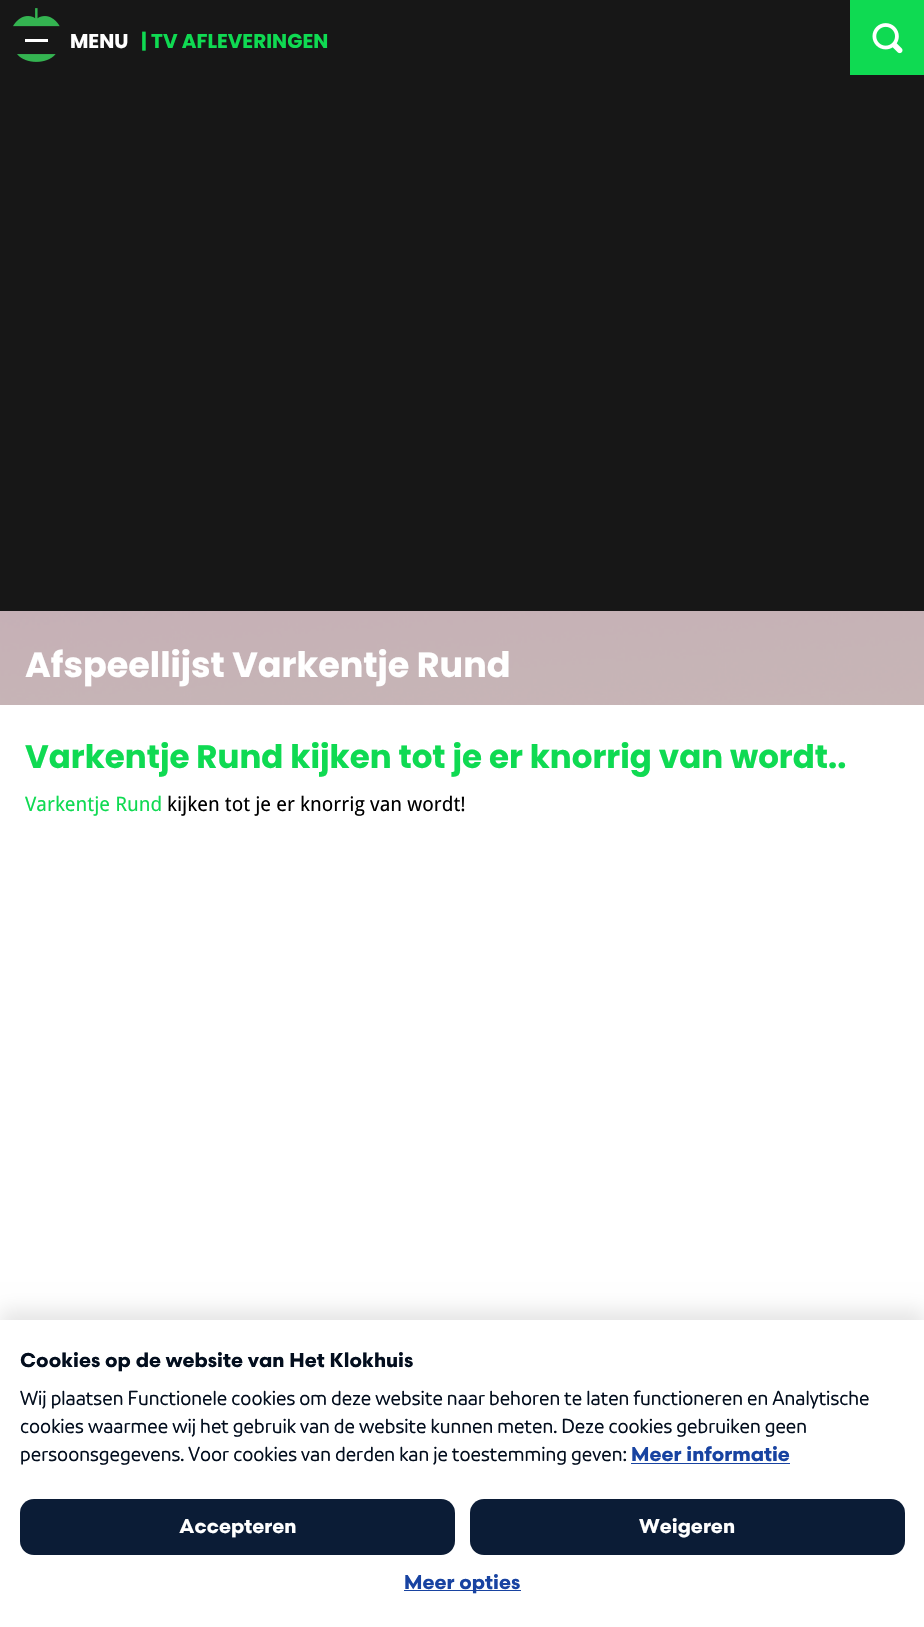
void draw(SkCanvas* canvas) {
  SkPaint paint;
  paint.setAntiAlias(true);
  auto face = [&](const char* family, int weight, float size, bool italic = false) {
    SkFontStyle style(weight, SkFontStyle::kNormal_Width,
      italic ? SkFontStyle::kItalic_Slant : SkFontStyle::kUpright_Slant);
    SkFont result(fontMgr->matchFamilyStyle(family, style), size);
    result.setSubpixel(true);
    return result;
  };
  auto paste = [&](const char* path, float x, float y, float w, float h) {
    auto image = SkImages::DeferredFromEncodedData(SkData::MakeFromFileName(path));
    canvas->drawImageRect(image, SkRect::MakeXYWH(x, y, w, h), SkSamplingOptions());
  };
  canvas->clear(0xffffffff);
  paste("img/1.png", 0, 611, 924, 94);
  paint.setColor(0xff171717);
  canvas->drawRect(SkRect::MakeXYWH(0, 0, 850, 69), paint);
  paste("img/2.png", 13, 8, 47, 54);
  {
    const struct { float x, y, w, h; SkColor color; } items[] = {
      {25, 39, 23, 3, 0xffffffff},
      {0, 69, 924, 542, 0xff171717},
      {850, 0, 74, 75, 0xff0fda52},
    };
    for (auto [x, y, w, h, color] : items) {
      paint.setColor(color);
      canvas->drawRect(SkRect::MakeXYWH(x, y, w, h), paint);
    }
  }
  paste("img/3.png", 872, 23, 31, 31);
  paint.setColor(0x1a000000);
  paint.setMaskFilter(SkMaskFilter::MakeBlur(kNormal_SkBlurStyle, 9.5f));
  canvas->drawRect(SkRect::MakeXYWH(0, 1310, 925, 308), paint);
  paint.setMaskFilter(nullptr);
  paint.setColor(0xffffffff);
  canvas->drawRect(SkRect::MakeXYWH(0, 1320, 924, 307), paint);
  paint.setColor(0xff1843a1);
  canvas->drawRect(SkRect::MakeXYWH(631, 1463, 159, 1), paint);
  paint.setColor(0xff0b1c36);
  canvas->drawRoundRect(SkRect::MakeXYWH(20, 1499, 435, 56), 14, 14, paint);
  canvas->drawRoundRect(SkRect::MakeXYWH(470, 1499, 435, 56), 14, 14, paint);
  paint.setColor(0xff1843a1);
  canvas->drawRect(SkRect::MakeXYWH(404, 1590, 117, 1), paint);
  auto f0 = face("Poppins", 700, 20);
  paint.setColor(0xffffffff);
  canvas->drawString("MENU", 70, 48, f0, paint);
  paint.setColor(0xff0fda52);
  canvas->drawString("| TV AFLEVERINGEN", 141, 48, f0, paint);
  auto f1 = face("Poppins", 700, 35);
  paint.setColor(0xffffffff);
  canvas->drawString("Afspeellijst Varkentje Rund", 25, 677, f1, paint);
  auto f2 = face("Poppins", 700, 32.5f);
  paint.setColor(0xff0fda52);
  canvas->drawString("Varkentje Rund kijken tot je er knorrig van wordt..", 25, 768, f2, paint);
  auto f3 = face("Droid Sans", 400, 20);
  canvas->drawString("Varkentje Rund", 25, 811, f3, paint);
  paint.setColor(0xff000000);
  canvas->drawString("kijken tot je er knorrig van wordt!", 167, 811, f3, paint);
  auto f4 = face("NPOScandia", 700, 20);
  paint.setColor(0xff030e1e);
  canvas->drawString("Cookies op de website van Het Klokhuis", 20, 1367, f4, paint);
  auto f5 = face("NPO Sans", 400, 20);
  {
    const struct { const char* s; float x, y; } items[] = {
      {"Wij plaatsen Functionele cookies om deze website naar behoren te laten functioneren en Analytische", 20, 1405},
      {"cookies waarmee wij het gebruik van de website kunnen meten. Deze cookies gebruiken geen", 20, 1433},
      {"persoonsgegevens. Voor cookies van derden kan je toestemming geven:", 20, 1461},
    };
    for (auto [s, x, y] : items) {
      canvas->drawString(s, x, y, f5, paint);
    }
  }
  paint.setColor(0xff1843a1);
  canvas->drawString("Meer informatie", 631, 1461, f4, paint);
  paint.setColor(0xffffffff);
  canvas->drawString("Accepteren", 179, 1533, f4, paint);
  canvas->drawString("Weigeren", 639, 1533, f4, paint);
  paint.setColor(0xff1843a1);
  canvas->drawString("Meer opties", 404, 1589, f4, paint);
}
